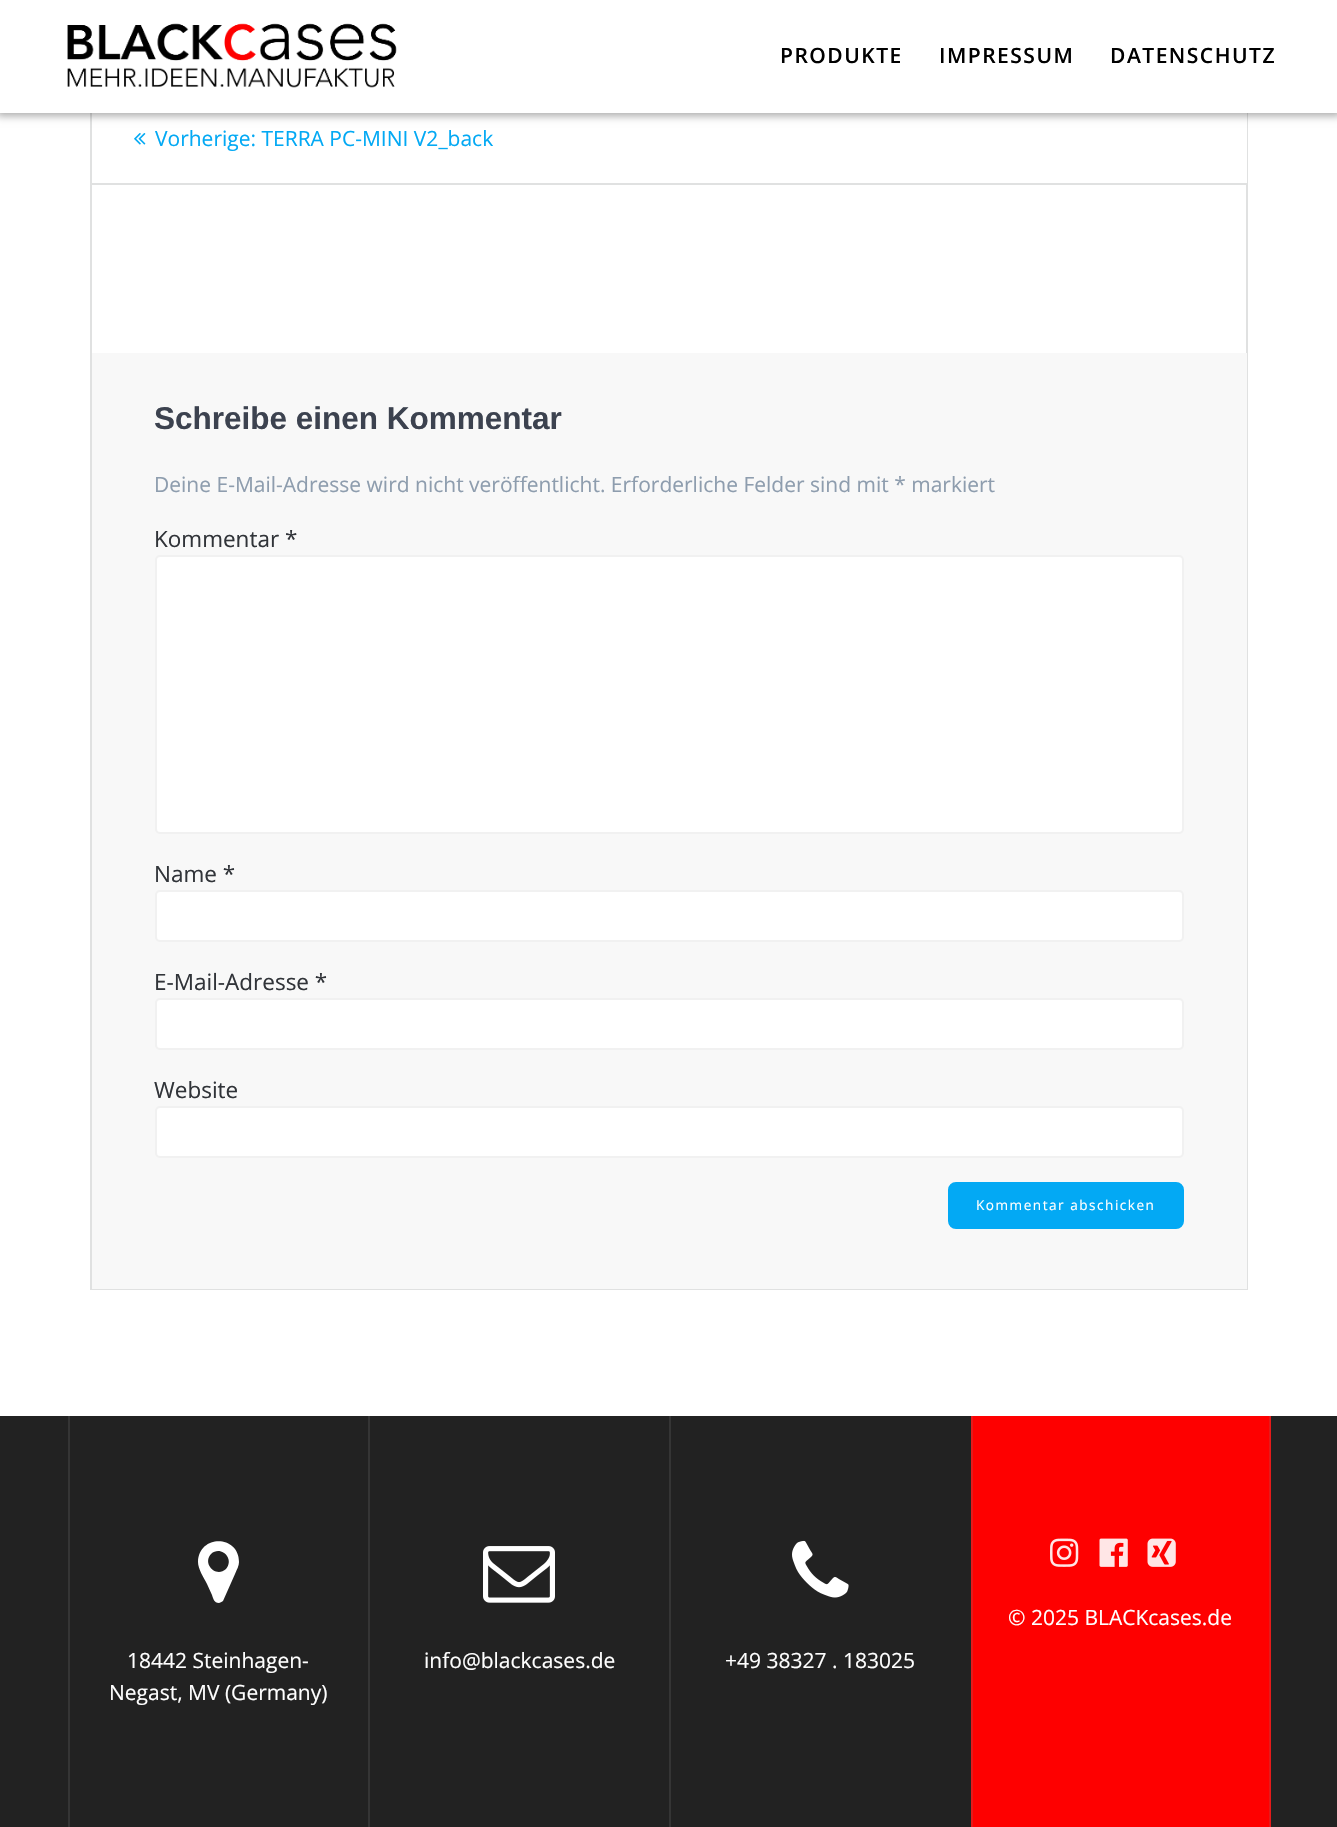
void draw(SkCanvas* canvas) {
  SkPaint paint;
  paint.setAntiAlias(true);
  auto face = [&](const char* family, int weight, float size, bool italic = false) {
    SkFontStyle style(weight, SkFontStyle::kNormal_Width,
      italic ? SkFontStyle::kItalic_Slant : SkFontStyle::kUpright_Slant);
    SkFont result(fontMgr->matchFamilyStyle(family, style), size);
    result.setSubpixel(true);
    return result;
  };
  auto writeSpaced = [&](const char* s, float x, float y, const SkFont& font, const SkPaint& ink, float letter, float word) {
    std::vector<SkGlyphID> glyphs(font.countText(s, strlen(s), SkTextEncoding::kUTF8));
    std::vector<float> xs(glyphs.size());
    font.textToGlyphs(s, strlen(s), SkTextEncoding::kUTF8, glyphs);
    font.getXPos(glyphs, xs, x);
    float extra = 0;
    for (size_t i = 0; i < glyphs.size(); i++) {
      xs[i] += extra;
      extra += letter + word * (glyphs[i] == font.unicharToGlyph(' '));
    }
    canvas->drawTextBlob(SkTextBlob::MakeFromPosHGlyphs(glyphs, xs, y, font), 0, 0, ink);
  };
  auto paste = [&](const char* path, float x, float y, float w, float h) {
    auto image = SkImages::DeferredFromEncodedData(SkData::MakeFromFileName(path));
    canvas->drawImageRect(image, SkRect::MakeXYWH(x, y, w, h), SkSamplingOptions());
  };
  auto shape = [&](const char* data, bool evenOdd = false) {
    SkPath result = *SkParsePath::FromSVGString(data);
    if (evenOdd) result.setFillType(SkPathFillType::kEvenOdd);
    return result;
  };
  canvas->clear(0xffffffff);
  paint.setStroke(true);
  paint.setStrokeWidth(2);
  paint.setColor(0xffe0e1e1);
  canvas->drawRect(SkRect::MakeXYWH(91, -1, 1156, 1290), paint);
  paint.setStroke(false);
  paint.setColor(0xffffffff);
  canvas->drawRect(SkRect::MakeXYWH(1246, 113, 1, 70), paint);
  paint.setColor(0x54000000);
  paint.setMaskFilter(SkMaskFilter::MakeBlur(kNormal_SkBlurStyle, 4));
  canvas->drawRect(SkRect::MakeXYWH(-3, -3, 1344, 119), paint);
  paint.setMaskFilter(nullptr);
  paint.setColor(0xffffffff);
  canvas->drawRect(SkRect::MakeXYWH(0, 0, 1337, 113), paint);
  paste("img/1.png", 67, 23, 330, 65);
  paint.setColor(0xffe0e1e1);
  canvas->drawRect(SkRect::MakeXYWH(92, 183, 1155, 2), paint);
  paste("img/2.png", 134, 133, 12, 12);
  paint.setColor(0xfff8f8f8);
  canvas->drawRect(SkRect::MakeXYWH(92, 353, 1155, 936), paint);
  paint.setColor(0xffffffff);
  canvas->drawRoundRect(SkRect::MakeXYWH(156, 556, 1027, 277), 4, 4, paint);
  paint.setStroke(true);
  paint.setColor(0xfff1f1f1);
  canvas->drawRoundRect(SkRect::MakeXYWH(156, 556, 1027, 277), 4, 4, paint);
  paint.setStroke(false);
  paint.setColor(0xffffffff);
  canvas->drawRoundRect(SkRect::MakeXYWH(156, 891, 1027, 50), 4, 4, paint);
  paint.setStroke(true);
  paint.setColor(0xfff1f1f1);
  canvas->drawRoundRect(SkRect::MakeXYWH(156, 891, 1027, 50), 4, 4, paint);
  paint.setStroke(false);
  paint.setColor(0xffffffff);
  canvas->drawRoundRect(SkRect::MakeXYWH(156, 999, 1027, 50), 4, 4, paint);
  paint.setStroke(true);
  paint.setColor(0xfff1f1f1);
  canvas->drawRoundRect(SkRect::MakeXYWH(156, 999, 1027, 50), 4, 4, paint);
  paint.setStroke(false);
  paint.setColor(0xffffffff);
  canvas->drawRoundRect(SkRect::MakeXYWH(156, 1107, 1027, 50), 4, 4, paint);
  paint.setStroke(true);
  paint.setColor(0xfff1f1f1);
  canvas->drawRoundRect(SkRect::MakeXYWH(156, 1107, 1027, 50), 4, 4, paint);
  paint.setStroke(false);
  paint.setColor(0xff03a9f4);
  canvas->drawRoundRect(SkRect::MakeXYWH(949.5f, 1183.5f, 233, 44), 6.5f, 6.5f, paint);
  paint.setStroke(true);
  paint.setStrokeWidth(3);
  canvas->drawRoundRect(SkRect::MakeXYWH(949.5f, 1183.5f, 233, 44), 6.5f, 6.5f, paint);
  paint.setStroke(false);
  {
    const struct { float x, y, w, h; SkColor color; } items[] = {
      {0, 1416, 1337, 411, 0xff222222},
      {973, 1416, 296, 411, 0xfffe0000},
      {1269, 1416, 2, 411, 0xffe51a1a},
      {971, 1416, 2, 411, 0xffe51a1a},
    };
    for (auto [x, y, w, h, color] : items) {
      paint.setColor(color);
      canvas->drawRect(SkRect::MakeXYWH(x, y, w, h), paint);
    }
  }
  paste("img/3.png", 1050, 1538, 29, 29);
  paste("img/4.png", 1099, 1538, 29, 29);
  paste("img/5.png", 1147, 1538, 29, 29);
  paint.setColor(0xff353535);
  canvas->drawRect(SkRect::MakeXYWH(68, 1416, 2, 411), paint);
  paint.setColor(0xffffffff);
  canvas->drawPath(shape("M226 1569C235 1559 221 1545 211 1554C202 1564 216 1578 226 1569ZM239 1562C239 1566 237 1569 235 1574L223 1601C222 1602 221 1602 219 1603C214 1603 213 1598 212 1595L207 1584C204 1578 198 1569 198 1562C199 1534 239 1535 239 1562Z"), paint);
  paint.setColor(0xff353535);
  canvas->drawRect(SkRect::MakeXYWH(368, 1416, 2, 411), paint);
  paste("img/6.png", 483, 1546, 72, 57);
  canvas->drawRect(SkRect::MakeXYWH(669, 1416, 2, 411), paint);
  paste("img/7.png", 792, 1540, 57, 58);
  auto f0 = face("Open Sans", 600, 21);
  paint.setColor(0xff000000);
  {
    const struct { const char* s; float x, y; } items[] = {
      {"PRODUKTE", 780, 63},
      {"IMPRESSUM", 939, 63},
      {"DATENSCHUTZ", 1110, 63},
    };
    for (auto [s, x, y] : items) {
      writeSpaced(s, x, y, f0, paint, 1.5f, 0);
    }
  }
  auto f1 = face("Open Sans", 400, 21);
  paint.setColor(0xff03a9f4);
  canvas->drawString("Vorherige: TERRA PC-MINI V2_back", 155, 146, f1, paint);
  auto f2 = face("Liberation Sans", 700, 31.5f);
  paint.setColor(0xff3c424f);
  canvas->drawString("Schreibe einen Kommentar", 154, 429, f2, paint);
  paint.setColor(0xff8e9dae);
  canvas->drawString("Deine E-Mail-Adresse wird nicht veröffentlicht. Erforderliche Felder sind mit * markiert", 154, 492, f1, paint);
  auto f3 = face("Open Sans", 400, 22.5f);
  paint.setColor(0xff313439);
  {
    const struct { const char* s; float x, y; } items[] = {
      {"Kommentar *", 154, 547},
      {"Name *", 154, 882},
      {"E-Mail-Adresse *", 154, 990},
      {"Website", 154, 1098},
    };
    for (auto [s, x, y] : items) {
      canvas->drawString(s, x, y, f3, paint);
    }
  }
  auto f4 = face("Open Sans", 400, 13.6f);
  paint.setColor(0xffffffff);
  writeSpaced("Kommentar abschicken", 976, 1210, f4, paint, 1.5f, 0);
  {
    const struct { const char* s; float x, y; } items[] = {
      {"© 2025 BLACKcases.de", 1008, 1625},
      {"18442 Steinhagen-", 127, 1668},
      {"Negast, MV (Germany)", 109, 1700},
      {"info@blackcases.de", 424, 1668},
      {"+49 38327 . 183025", 725, 1668},
    };
    for (auto [s, x, y] : items) {
      canvas->drawString(s, x, y, f1, paint);
    }
  }
}
